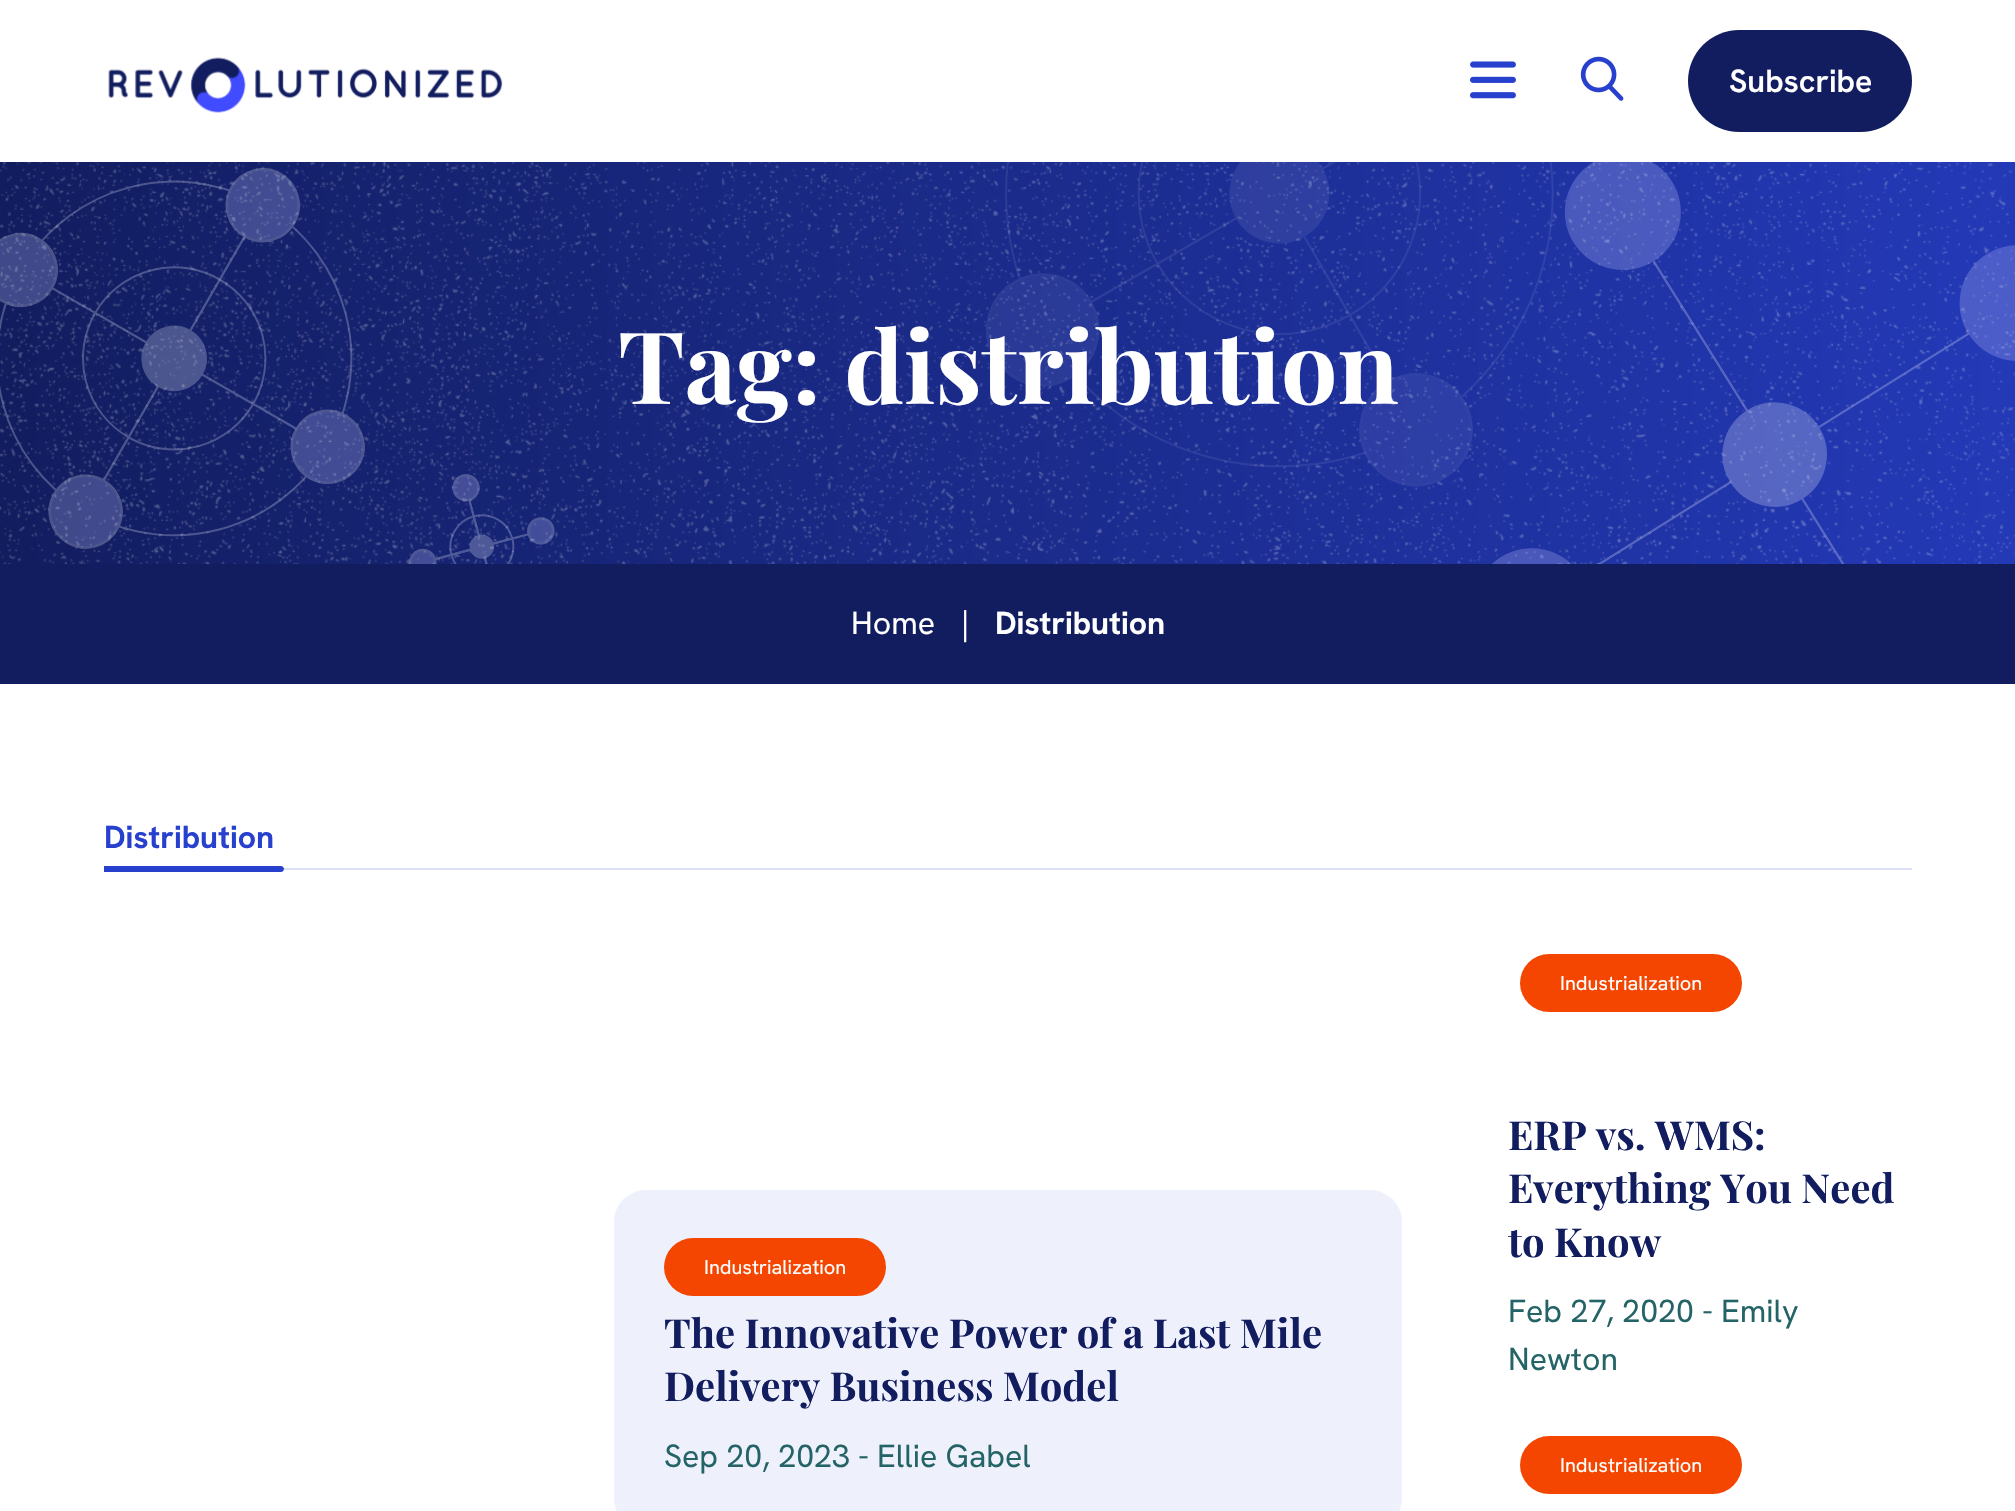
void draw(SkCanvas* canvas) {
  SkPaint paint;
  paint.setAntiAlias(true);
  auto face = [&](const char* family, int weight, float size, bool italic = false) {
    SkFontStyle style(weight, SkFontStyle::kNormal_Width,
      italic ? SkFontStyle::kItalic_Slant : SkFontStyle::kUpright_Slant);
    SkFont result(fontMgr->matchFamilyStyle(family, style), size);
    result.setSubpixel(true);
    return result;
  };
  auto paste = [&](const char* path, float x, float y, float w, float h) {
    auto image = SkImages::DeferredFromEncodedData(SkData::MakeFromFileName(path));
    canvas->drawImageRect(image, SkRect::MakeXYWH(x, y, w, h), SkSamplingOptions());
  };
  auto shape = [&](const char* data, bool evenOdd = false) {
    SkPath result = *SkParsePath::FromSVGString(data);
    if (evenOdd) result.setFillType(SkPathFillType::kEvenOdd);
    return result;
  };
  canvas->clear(0xffffffff);
  paste("img/1.png", 108, 57, 395, 56);
  paste("img/2.png", 1470, 61, 46, 38);
  paste("img/3.png", 1580, 56, 44, 45);
  paint.setColor(0xff121d5f);
  canvas->drawRoundRect(SkRect::MakeXYWH(1688, 30, 224, 102), 51, 51, paint);
  {
    const SkColor colors[] = {0xff121d5f, 0xff2339b7};
    const float stops[] = {0, 1};
    const SkPoint ends[] = {{0, 363}, {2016, 363}};
    paint.setShader(SkGradientShader::MakeLinear(ends, colors, stops, 2, SkTileMode::kClamp));
    paint.setAlpha(255);
  }
  canvas->drawRect(SkRect::MakeXYWH(0, 162, 2015, 402), paint);
  paste("img/4.png", 0, 162, 2015, 402);
  paste("img/5.png", 0, 162, 2015, 402);
  paint.setShader(nullptr);
  paint.setColor(0xff121d5f);
  canvas->drawRect(SkRect::MakeXYWH(0, 564, 2015, 120), paint);
  paint.setColor(0xffdde1f8);
  canvas->drawRect(SkRect::MakeXYWH(283, 868, 1629, 2), paint);
  paint.setColor(0xff2740ce);
  canvas->drawPath(shape("M104 866H281C282.5 866 284 867.5 284 869C284 870.5 282.5 872 281 872H104Z"), paint);
  paint.setColor(0xffeef0fc);
  canvas->drawRoundRect(SkRect::MakeXYWH(614, 1190, 788, 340), 32, 32, paint);
  paint.setColor(0xfff44601);
  canvas->drawRoundRect(SkRect::MakeXYWH(664, 1238, 222, 58), 29, 29, paint);
  canvas->drawRoundRect(SkRect::MakeXYWH(1520, 954, 222, 58), 29, 29, paint);
  canvas->drawRoundRect(SkRect::MakeXYWH(1520, 1436, 222, 58), 29, 29, paint);
  auto f0 = face("Hanken Grotesk", 600, 32);
  paint.setColor(0xffffffff);
  canvas->drawString("Subscribe", 1729, 92, f0, paint);
  auto f1 = face("Playfair Display", 700, 100);
  canvas->drawString("Tag: distribution", 618, 404, f1, paint);
  auto f2 = face("Hanken Grotesk", 400, 32);
  canvas->drawString("Home", 851, 634, f2, paint);
  canvas->drawString("|", 961, 634, f2, paint);
  auto f3 = face("Hanken Grotesk", 700, 32);
  canvas->drawString("Distribution", 995, 634, f3, paint);
  paint.setColor(0xff2740ce);
  canvas->drawString("Distribution", 104, 848, f3, paint);
  auto f4 = face("Hanken Grotesk", 400, 20);
  paint.setColor(0xffffffff);
  canvas->drawString("Industrialization", 704, 1274, f4, paint);
  auto f5 = face("Playfair Display", 700, 40);
  paint.setColor(0xff121d5f);
  canvas->drawString("The Innovative Power of a Last Mile", 664, 1348, f5, paint);
  canvas->drawString("Delivery Business Model", 664, 1401, f5, paint);
  paint.setColor(0xff246466);
  canvas->drawString("Sep 20, 2023 - Ellie Gabel", 664, 1467, f2, paint);
  paint.setColor(0xffffffff);
  canvas->drawString("Industrialization", 1560, 990, f4, paint);
  paint.setColor(0xff121d5f);
  {
    const struct { const char* s; float x, y; } items[] = {
      {"ERP vs. WMS:", 1508, 1150},
      {"Everything You Need", 1508, 1203},
      {"to Know", 1508, 1257},
    };
    for (auto [s, x, y] : items) {
      canvas->drawString(s, x, y, f5, paint);
    }
  }
  paint.setColor(0xff246466);
  canvas->drawString("Feb 27, 2020 - Emily", 1508, 1322, f2, paint);
  canvas->drawString("Newton", 1508, 1370, f2, paint);
  paint.setColor(0xffffffff);
  canvas->drawString("Industrialization", 1560, 1472, f4, paint);
}
